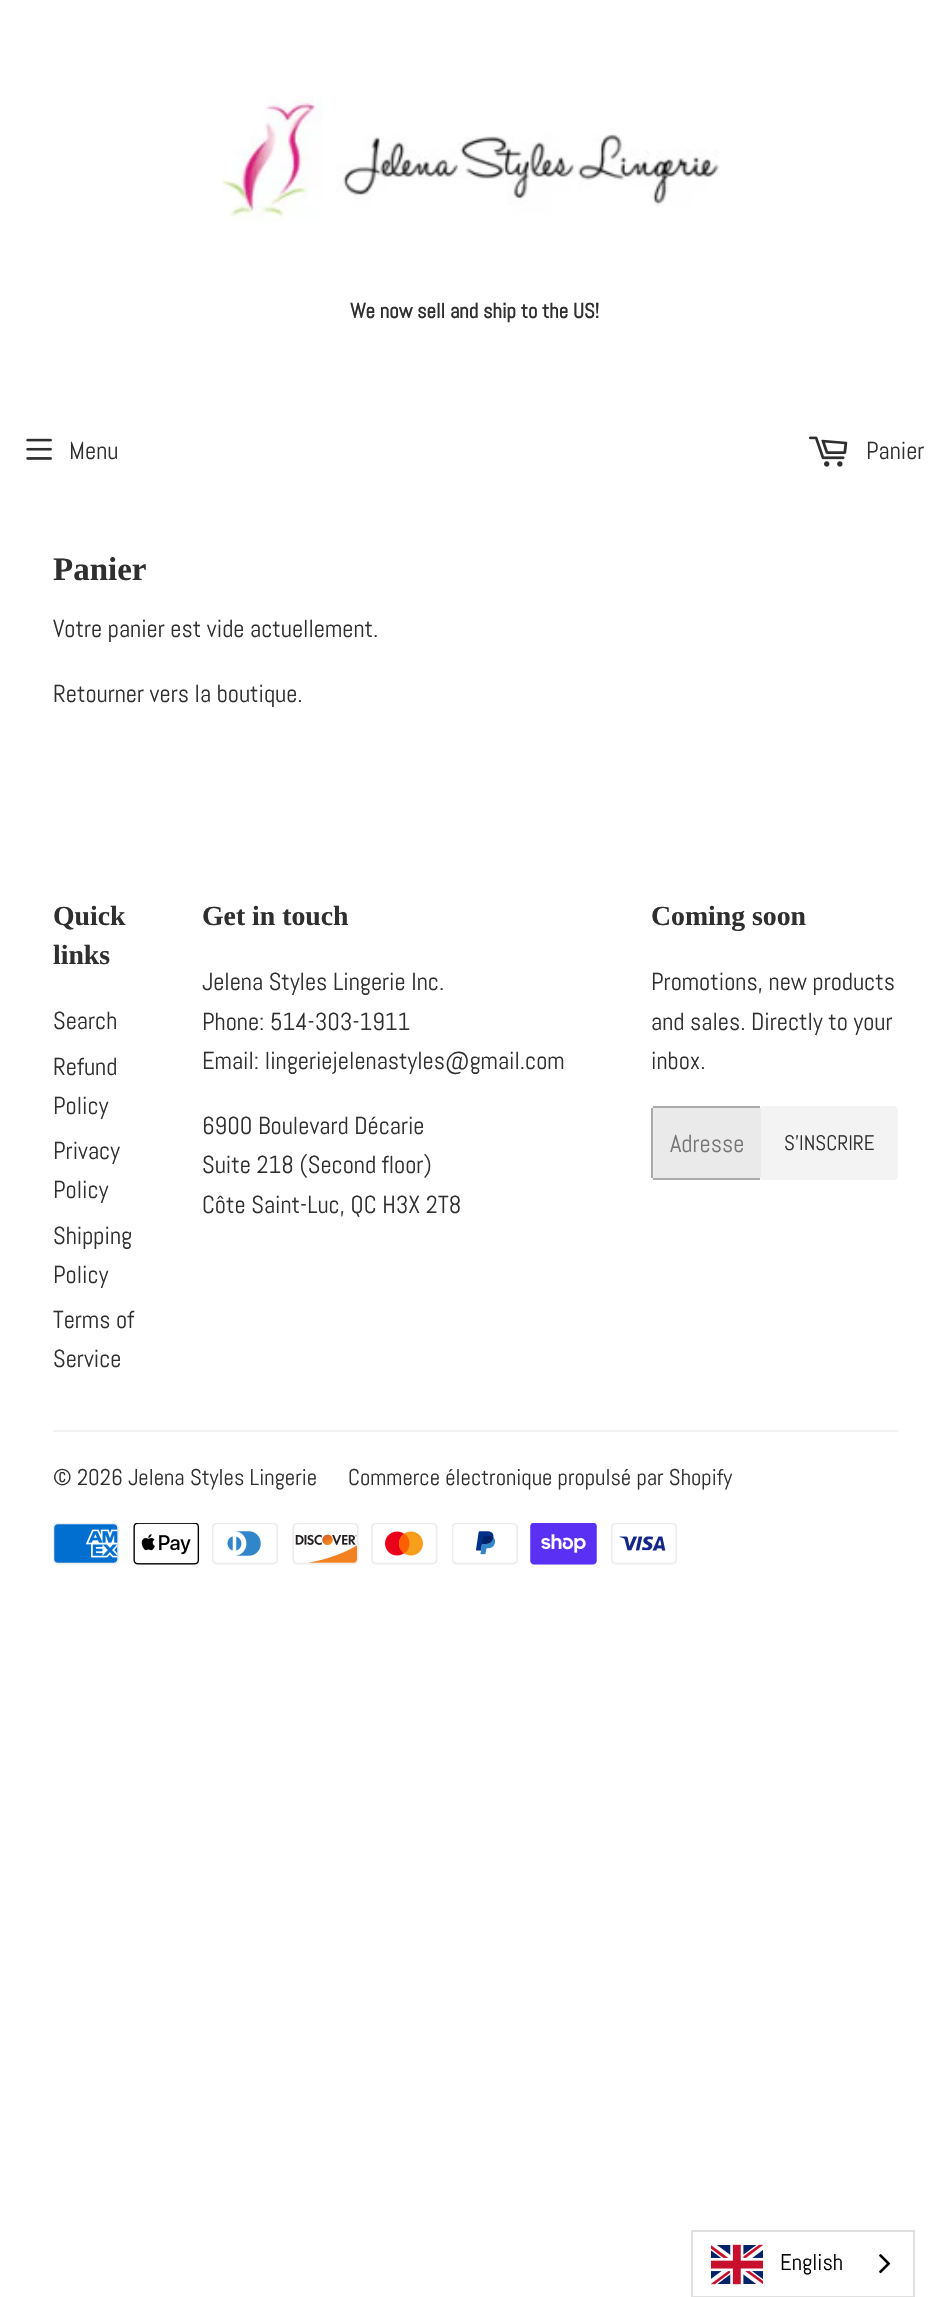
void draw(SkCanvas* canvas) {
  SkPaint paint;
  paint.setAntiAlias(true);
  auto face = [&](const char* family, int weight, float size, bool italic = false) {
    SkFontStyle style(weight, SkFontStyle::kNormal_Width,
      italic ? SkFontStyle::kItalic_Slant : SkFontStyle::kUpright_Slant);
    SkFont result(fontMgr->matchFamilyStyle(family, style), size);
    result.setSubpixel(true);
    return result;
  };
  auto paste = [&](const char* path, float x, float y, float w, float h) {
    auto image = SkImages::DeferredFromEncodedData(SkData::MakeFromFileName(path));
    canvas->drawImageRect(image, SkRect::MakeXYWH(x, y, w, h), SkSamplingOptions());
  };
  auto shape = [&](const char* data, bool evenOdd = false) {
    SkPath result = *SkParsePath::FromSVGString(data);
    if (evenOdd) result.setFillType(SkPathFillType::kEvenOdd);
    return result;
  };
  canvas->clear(0xffffffff);
  paste("img/1.png", 222, 96, 498, 125);
  paste("img/2.png", 26, 438, 26, 22);
  paste("img/3.png", 808, 436, 40, 31);
  paint.setColor(0xffeaeaea);
  canvas->drawRoundRect(SkRect::MakeXYWH(651, 1106, 110, 74), 4, 4, paint);
  {
    const struct { float x, y, w, h; SkColor color; } items[] = {
      {653, 1106, 107, 2, 0xffababab},
      {653, 1178, 107, 2, 0xffababab},
      {651, 1108, 2, 70, 0xffababab},
    };
    for (auto [x, y, w, h, color] : items) {
      paint.setColor(color);
      canvas->drawRect(SkRect::MakeXYWH(x, y, w, h), paint);
    }
  }
  paint.setColor(0xfff3f3f3);
  canvas->drawPath(shape("M761 1106H894C896 1106 898 1108 898 1110V1176C898 1178 896 1180 894 1180H761Z"), paint);
  paint.setColor(0xfff2f2f2);
  canvas->drawRect(SkRect::MakeXYWH(53, 1430, 845, 2), paint);
  paste("img/4.png", 53, 1523, 66, 42);
  paste("img/5.png", 133, 1523, 67, 42);
  paste("img/6.png", 212, 1523, 66, 42);
  paste("img/7.png", 292, 1523, 67, 42);
  paste("img/8.png", 371, 1523, 67, 42);
  paste("img/9.png", 452, 1523, 66, 42);
  paste("img/10.png", 530, 1523, 67, 42);
  paste("img/11.png", 611, 1523, 66, 42);
  paint.setStroke(true);
  paint.setStrokeWidth(2);
  paint.setColor(0xffe0e0e0);
  canvas->drawRect(SkRect::MakeXYWH(692, 2231, 222, 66), paint);
  paste("img/12.png", 711, 2244, 52, 41);
  paste("img/13.png", 879, 2254, 12, 20);
  auto f0 = face("Abel", 700, 20.75f);
  paint.setStroke(false);
  paint.setColor(0xff2f2f2f);
  canvas->drawString("We now sell and ship to the US!", 350, 318, f0, paint);
  auto f1 = face("Abel", 400, 24.5f);
  canvas->drawString("Menu", 69, 459, f1, paint);
  canvas->drawString("Panier", 866, 459, f1, paint);
  auto f2 = face("Liberation Serif", 700, 33);
  canvas->drawString("Panier", 53, 580, f2, paint);
  canvas->drawString("Votre panier est vide actuellement.", 53, 637, f1, paint);
  canvas->drawString("Retourner vers la boutique.", 53, 702, f1, paint);
  auto f3 = face("Liberation Serif", 700, 27.75f);
  canvas->drawString("Quick", 53, 925, f3, paint);
  canvas->drawString("links", 53, 964, f3, paint);
  {
    const struct { const char* s; float x, y; } items[] = {
      {"Search", 53, 1029},
      {"Refund", 53, 1075},
      {"Policy", 53, 1114},
      {"Privacy", 53, 1159},
      {"Policy", 53, 1198},
      {"Shipping", 53, 1244},
      {"Policy", 53, 1283},
      {"Terms of", 53, 1328},
      {"Service", 53, 1367},
    };
    for (auto [s, x, y] : items) {
      canvas->drawString(s, x, y, f1, paint);
    }
  }
  canvas->drawString("Get in touch", 202, 925, f3, paint);
  {
    const struct { const char* s; float x, y; } items[] = {
      {"Jelena Styles Lingerie Inc.", 202, 990},
      {"Phone: 514-303-1911", 202, 1030},
      {"Email: lingeriejelenastyles@gmail.com", 202, 1069},
      {"6900 Boulevard Décarie", 202, 1134},
      {"Suite 218 (Second floor)", 202, 1173},
      {"Côte Saint-Luc, QC H3X 2T8", 202, 1213},
    };
    for (auto [s, x, y] : items) {
      canvas->drawString(s, x, y, f1, paint);
    }
  }
  canvas->drawString("Coming soon", 651, 925, f3, paint);
  {
    const struct { const char* s; float x, y; } items[] = {
      {"Promotions, new products", 651, 990},
      {"and sales. Directly to your", 651, 1030},
      {"inbox.", 651, 1069},
    };
    for (auto [s, x, y] : items) {
      canvas->drawString(s, x, y, f1, paint);
    }
  }
  paint.setColor(0xff757575);
  canvas->drawString("Adresse", 670, 1152, f1, paint);
  auto f4 = face("Abel", 400, 21);
  paint.setColor(0xff2f2f2f);
  canvas->drawString("S'INSCRIRE", 784, 1150, f4, paint);
  auto f5 = face("Abel", 400, 22.75f);
  canvas->drawString("© 2026 Jelena Styles Lingerie", 53, 1485, f5, paint);
  canvas->drawString("Commerce électronique propulsé par Shopify", 348, 1485, f5, paint);
  paint.setColor(0xff000000);
  canvas->drawString("English", 780, 2270, f5, paint);
}
